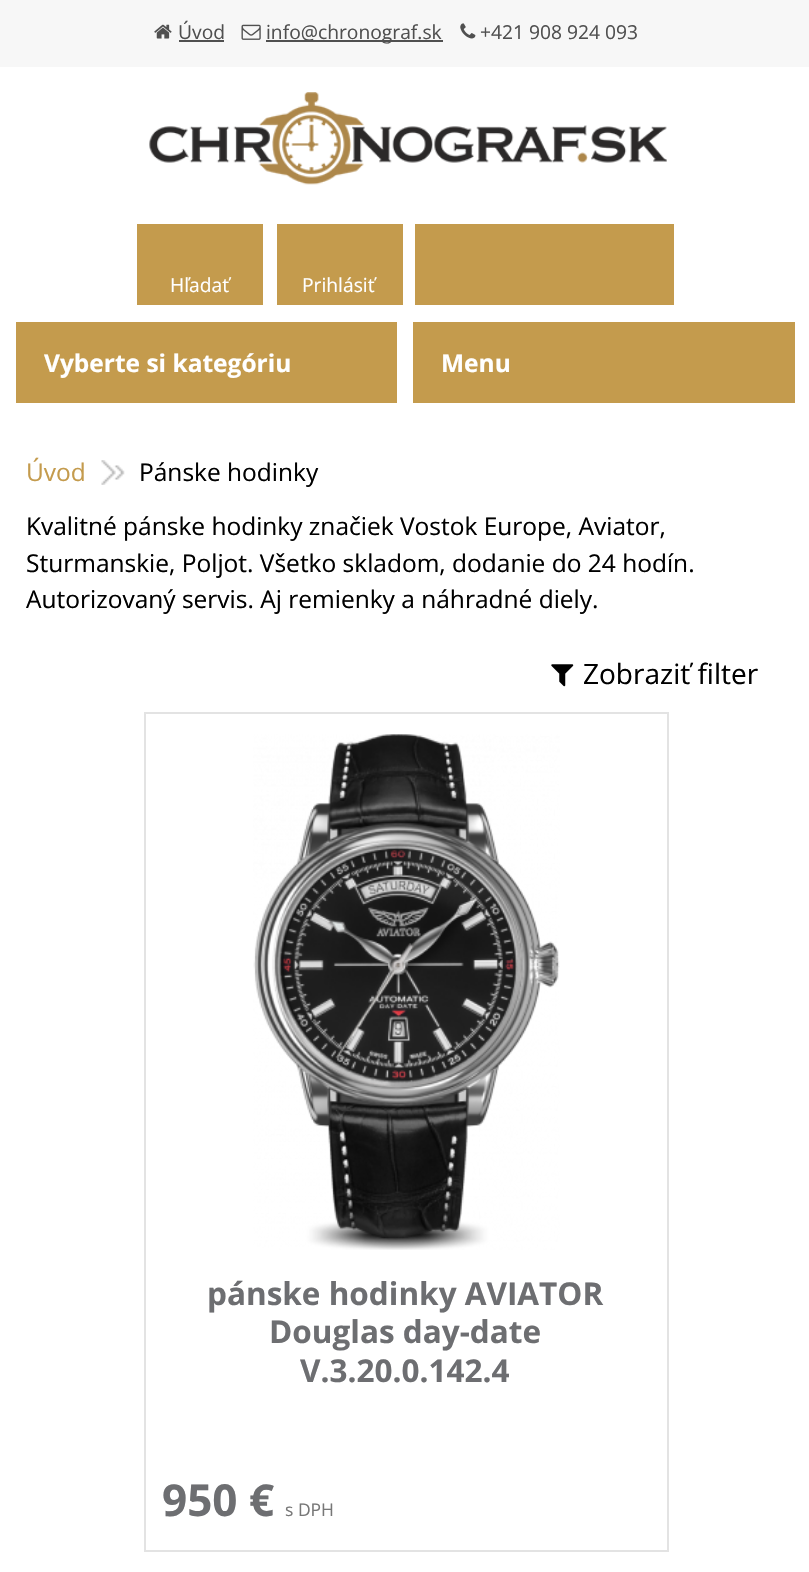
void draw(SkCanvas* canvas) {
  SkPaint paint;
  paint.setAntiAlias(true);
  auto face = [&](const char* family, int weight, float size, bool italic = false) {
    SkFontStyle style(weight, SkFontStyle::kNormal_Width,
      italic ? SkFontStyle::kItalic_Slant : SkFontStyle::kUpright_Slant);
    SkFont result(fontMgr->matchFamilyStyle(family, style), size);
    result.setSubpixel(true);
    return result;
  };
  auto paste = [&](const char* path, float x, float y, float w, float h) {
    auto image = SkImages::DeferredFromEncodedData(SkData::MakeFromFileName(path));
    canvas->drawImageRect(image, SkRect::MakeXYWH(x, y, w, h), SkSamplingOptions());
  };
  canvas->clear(0xffffffff);
  paint.setColor(0xfff7f7f7);
  canvas->drawRect(SkRect::MakeXYWH(0, 0, 809, 67), paint);
  paste("img/1.png", 154, 24, 18, 15);
  paint.setColor(0xff505050);
  canvas->drawRect(SkRect::MakeXYWH(179, 40, 45, 2), paint);
  paste("img/2.png", 241, 24, 20, 16);
  canvas->drawRect(SkRect::MakeXYWH(266, 40, 177, 2), paint);
  paste("img/3.png", 460, 23, 16, 16);
  paste("img/4.png", 149, 92, 518, 93);
  {
    const struct { float x, y, w, h; SkColor color; } items[] = {
      {137, 224, 126, 81, 0xffc49b4d},
      {277, 224, 126, 81, 0xffc49b4d},
      {415, 224, 259, 81, 0xffc49b4d},
      {16, 322, 381, 81, 0xffc49b4d},
    };
    for (auto [x, y, w, h, color] : items) {
      paint.setColor(color);
      canvas->drawRect(SkRect::MakeXYWH(x, y, w, h), paint);
    }
  }
  paste("img/5.png", 101, 460, 24, 25);
  paste("img/6.png", 551, 664, 23, 23);
  paint.setStroke(true);
  paint.setStrokeWidth(2);
  paint.setColor(0xffe3e3e3);
  canvas->drawRect(SkRect::MakeXYWH(145, 713, 523, 838), paint);
  paste("img/7.png", 253, 734, 307, 516);
  paint.setStroke(false);
  paint.setColor(0xffc49b4d);
  canvas->drawRect(SkRect::MakeXYWH(413, 322, 382, 81), paint);
  auto f0 = face("Open Sans", 400, 19.25f);
  paint.setColor(0xff505050);
  {
    const struct { const char* s; float x, y; } items[] = {
      {"Úvod", 178, 39},
      {"info@chronograf.sk", 266, 39},
      {"+421 908 924 093", 480, 39},
    };
    for (auto [s, x, y] : items) {
      canvas->drawString(s, x, y, f0, paint);
    }
  }
  paint.setColor(0xffffffff);
  canvas->drawString("Hľadať", 170, 292, f0, paint);
  canvas->drawString("Prihlásiť", 302, 292, f0, paint);
  auto f1 = face("Open Sans", 700, 24.5f);
  canvas->drawString("Vyberte si kategóriu", 44, 372, f1, paint);
  auto f2 = face("Open Sans", 400, 24.5f);
  paint.setColor(0xffc49b4d);
  canvas->drawString("Úvod", 26, 481, f2, paint);
  paint.setColor(0xff000000);
  {
    const struct { const char* s; float x, y; } items[] = {
      {"Pánske hodinky", 139, 481},
      {"Kvalitné pánske hodinky značiek Vostok Europe, Aviator,", 26, 535},
      {"Sturmanskie, Poljot. Všetko skladom, dodanie do 24 hodín.", 26, 572},
      {"Autorizovaný servis. Aj remienky a náhradné diely.", 26, 608},
    };
    for (auto [s, x, y] : items) {
      canvas->drawString(s, x, y, f2, paint);
    }
  }
  auto f3 = face("Open Sans", 400, 28);
  canvas->drawString("Zobraziť filter", 583, 684, f3, paint);
  auto f4 = face("Open Sans", 700, 31.5f);
  paint.setColor(0xff6d6e71);
  {
    const struct { const char* s; float x, y; } items[] = {
      {"pánske hodinky AVIATOR", 207, 1305},
      {"Douglas day-date", 269, 1343},
      {"V.3.20.0.142.4", 300, 1382},
    };
    for (auto [s, x, y] : items) {
      canvas->drawString(s, x, y, f4, paint);
    }
  }
  auto f5 = face("Open Sans", 700, 44);
  canvas->drawString("950 €", 162, 1516, f5, paint);
  auto f6 = face("Open Sans", 400, 17.5f);
  paint.setColor(0xff777777);
  canvas->drawString("s DPH", 285, 1516, f6, paint);
  paint.setColor(0xffffffff);
  canvas->drawString("Menu", 441, 372, f1, paint);
}
